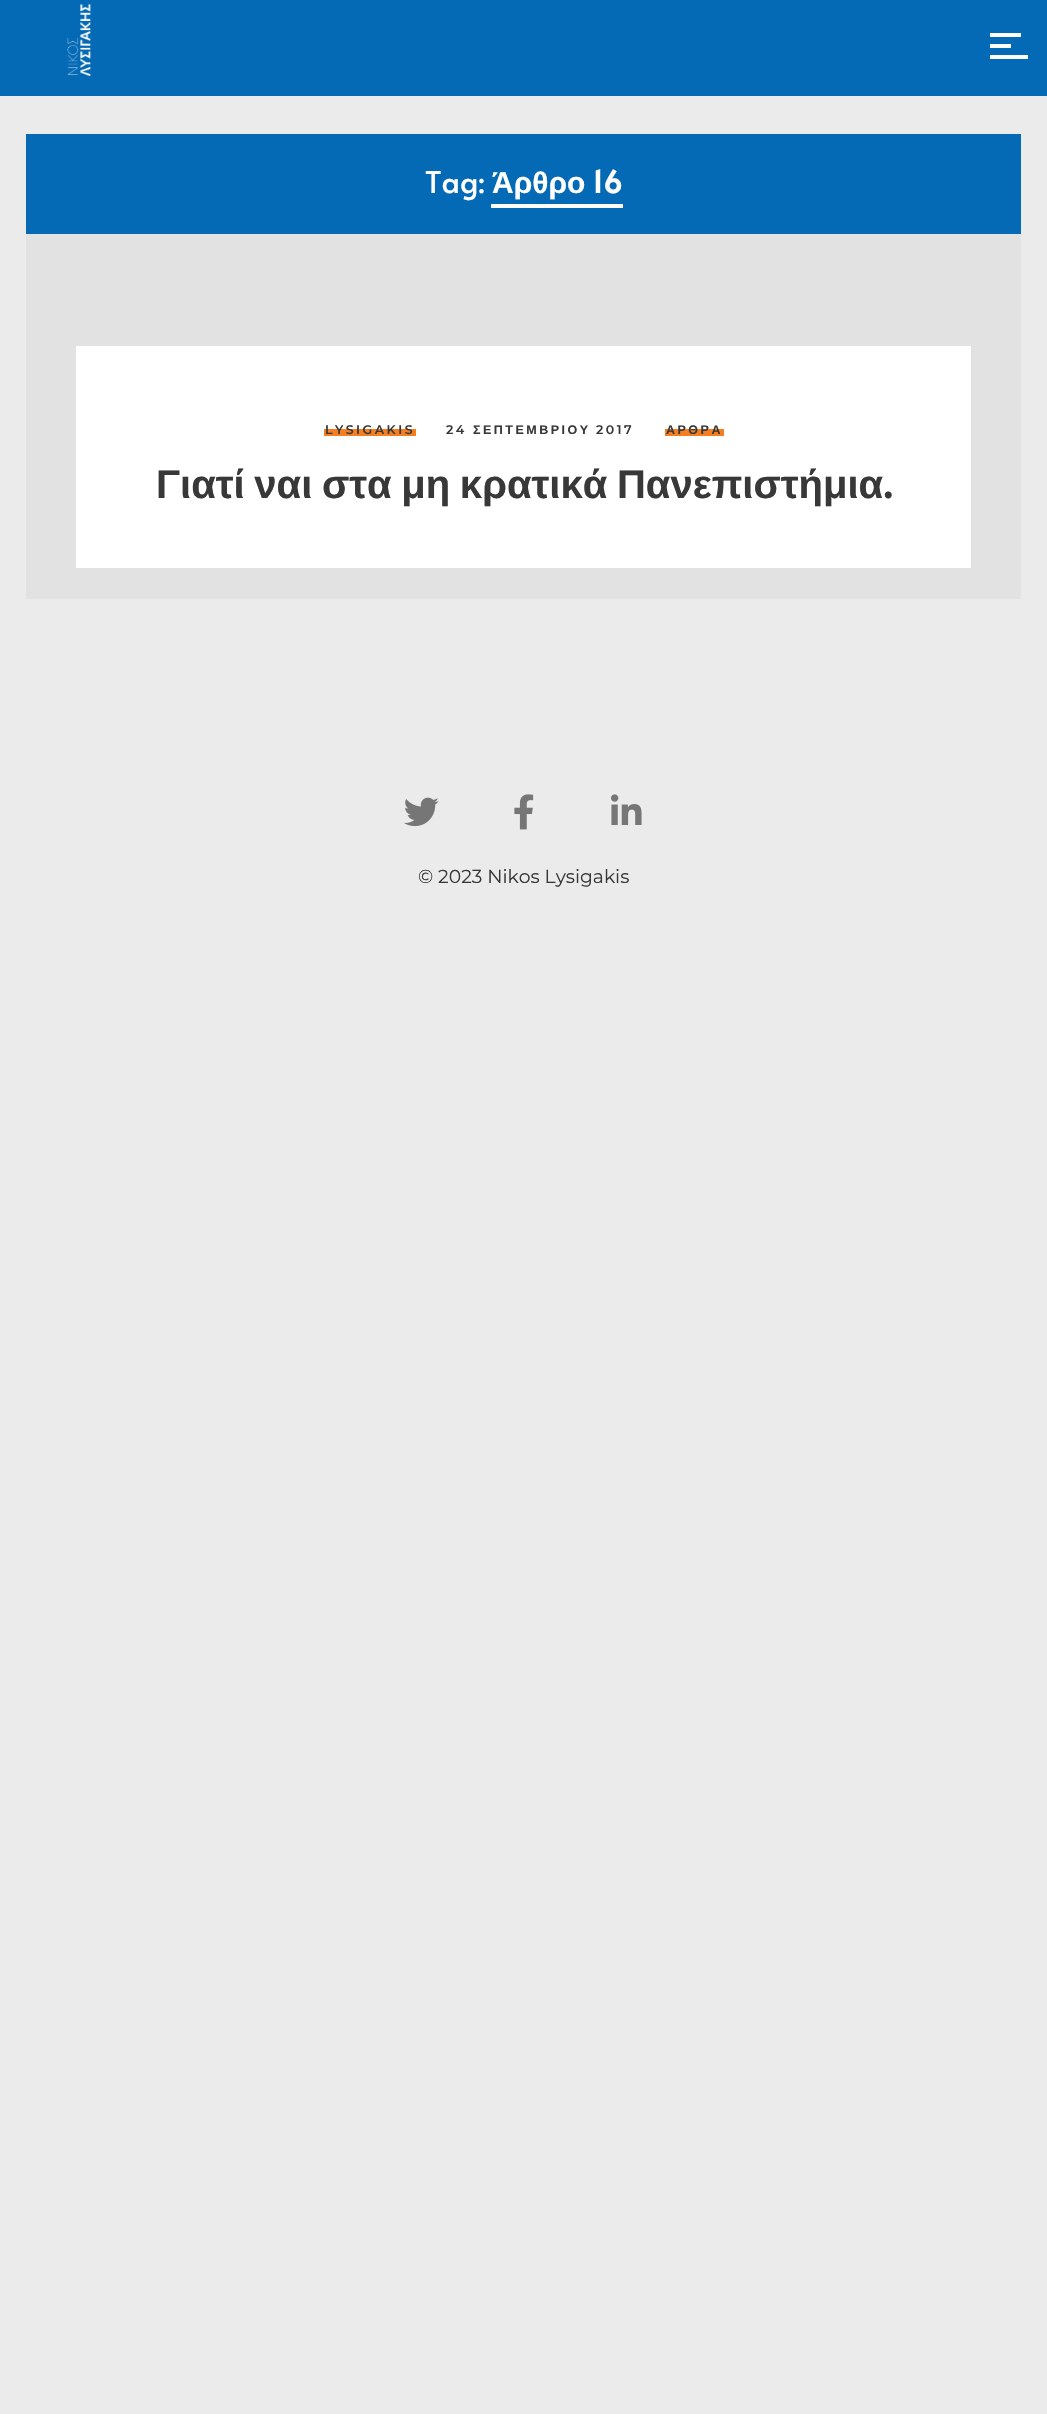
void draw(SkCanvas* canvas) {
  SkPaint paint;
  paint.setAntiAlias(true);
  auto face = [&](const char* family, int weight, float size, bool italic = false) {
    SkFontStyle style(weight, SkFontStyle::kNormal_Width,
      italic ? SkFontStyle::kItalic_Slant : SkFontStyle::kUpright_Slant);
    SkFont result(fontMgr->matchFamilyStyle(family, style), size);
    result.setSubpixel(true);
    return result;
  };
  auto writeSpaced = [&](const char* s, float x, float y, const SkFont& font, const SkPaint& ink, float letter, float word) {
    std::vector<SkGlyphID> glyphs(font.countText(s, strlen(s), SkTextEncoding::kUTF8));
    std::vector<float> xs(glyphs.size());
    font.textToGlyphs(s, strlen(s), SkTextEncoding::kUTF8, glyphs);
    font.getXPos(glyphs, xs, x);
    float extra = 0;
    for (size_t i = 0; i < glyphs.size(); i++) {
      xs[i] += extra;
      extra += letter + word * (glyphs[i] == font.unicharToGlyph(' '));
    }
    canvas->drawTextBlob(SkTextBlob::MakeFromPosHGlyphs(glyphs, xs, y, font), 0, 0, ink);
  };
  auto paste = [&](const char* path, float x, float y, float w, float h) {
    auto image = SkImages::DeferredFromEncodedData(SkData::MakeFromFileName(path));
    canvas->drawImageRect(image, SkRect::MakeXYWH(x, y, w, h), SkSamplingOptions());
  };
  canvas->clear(0xffebebeb);
  paint.setColor(0xff046ab5);
  canvas->drawRect(SkRect::MakeXYWH(0, 0, 1047, 96), paint);
  paste("img/1.png", 67, 3, 25, 74);
  {
    const struct { float x, y, w, h; SkColor color; } items[] = {
      {990, 33, 31, 4, 0xffffffff},
      {990, 44, 21, 4, 0xffffffff},
      {990, 55, 38, 4, 0xffffffff},
      {26, 234, 995, 365, 0xffe2e2e2},
      {26, 134, 995, 100, 0xff046ab5},
      {491, 204, 132, 4, 0xffffffff},
      {76, 346, 895, 222, 0xffffffff},
      {324, 429, 92, 7, 0xfff57f20},
      {665, 429, 59, 7, 0xfff57f20},
    };
    for (auto [x, y, w, h, color] : items) {
      paint.setColor(color);
      canvas->drawRect(SkRect::MakeXYWH(x, y, w, h), paint);
    }
  }
  paste("img/2.png", 404, 797, 35, 30);
  paste("img/3.png", 514, 794, 20, 36);
  paste("img/4.png", 611, 794, 31, 31);
  auto f0 = face("Alata", 400, 30);
  paint.setColor(0xffffffff);
  canvas->drawString("Tag:", 425, 193, f0, paint);
  auto f1 = face("Liberation Sans", 700, 30);
  canvas->drawString("Άρθρο", 492, 193, f1, paint);
  auto f2 = face("Alata", 700, 30);
  canvas->drawString("16", 592, 193, f2, paint);
  auto f3 = face("Montserrat", 600, 12.5f);
  paint.setColor(0xff383838);
  writeSpaced("LYSIGAKIS", 325, 434, f3, paint, 2.5f, 0);
  writeSpaced("24", 446, 434, f3, paint, 2.5f, 0);
  auto f4 = face("Liberation Sans", 700, 12.5f);
  writeSpaced("ΣΕΠΤΕΜΒΡΙΟΥ", 473, 434, f4, paint, 2.5f, 0);
  writeSpaced("2017", 596, 434, f3, paint, 2.5f, 0);
  writeSpaced("ΑΡΘΡΑ", 666, 434, f4, paint, 2.5f, 0);
  auto f5 = face("Liberation Sans", 700, 40);
  writeSpaced("Γιατί ναι στα μη κρατικά Πανεπιστήμια", 156, 498, f5, paint, 0, -1.5f);
  auto f6 = face("Alata", 700, 40);
  canvas->drawString(".", 884, 498, f6, paint);
  auto f7 = face("Montserrat", 400, 18.75f);
  canvas->drawString("© 2023 Nikos Lysigakis", 418, 883, f7, paint);
}
